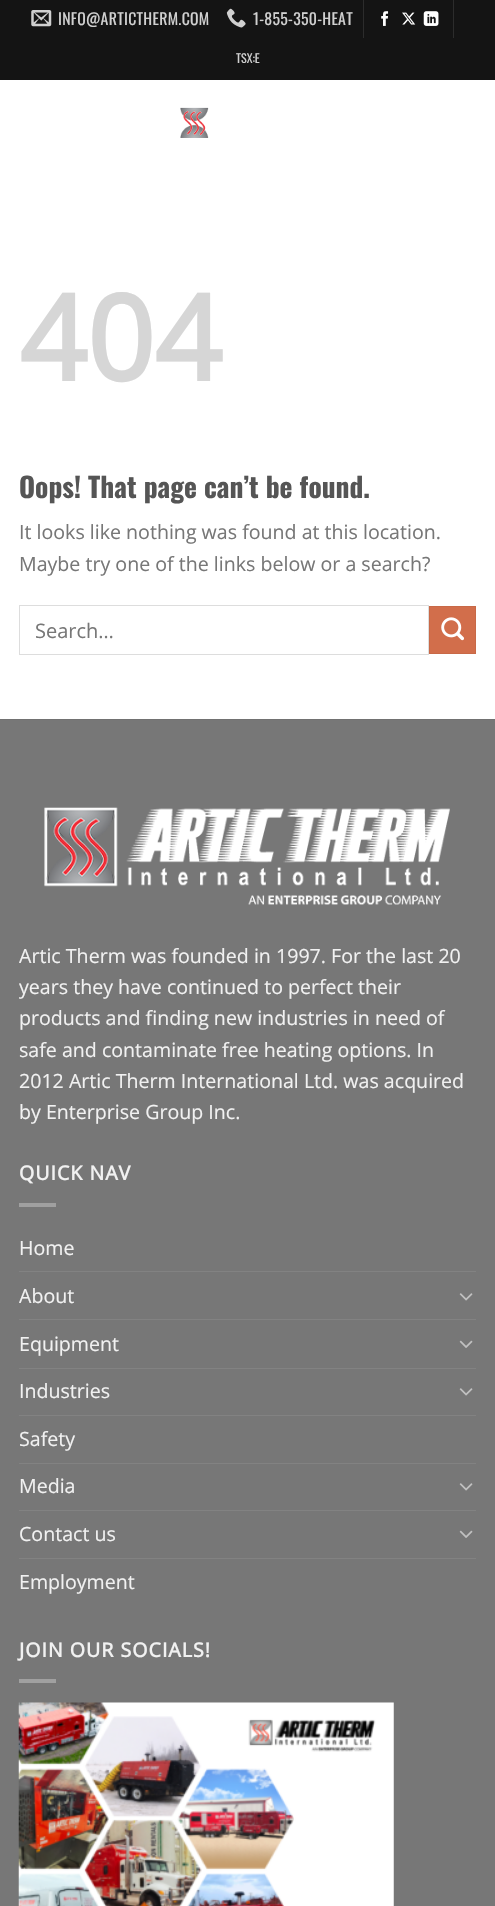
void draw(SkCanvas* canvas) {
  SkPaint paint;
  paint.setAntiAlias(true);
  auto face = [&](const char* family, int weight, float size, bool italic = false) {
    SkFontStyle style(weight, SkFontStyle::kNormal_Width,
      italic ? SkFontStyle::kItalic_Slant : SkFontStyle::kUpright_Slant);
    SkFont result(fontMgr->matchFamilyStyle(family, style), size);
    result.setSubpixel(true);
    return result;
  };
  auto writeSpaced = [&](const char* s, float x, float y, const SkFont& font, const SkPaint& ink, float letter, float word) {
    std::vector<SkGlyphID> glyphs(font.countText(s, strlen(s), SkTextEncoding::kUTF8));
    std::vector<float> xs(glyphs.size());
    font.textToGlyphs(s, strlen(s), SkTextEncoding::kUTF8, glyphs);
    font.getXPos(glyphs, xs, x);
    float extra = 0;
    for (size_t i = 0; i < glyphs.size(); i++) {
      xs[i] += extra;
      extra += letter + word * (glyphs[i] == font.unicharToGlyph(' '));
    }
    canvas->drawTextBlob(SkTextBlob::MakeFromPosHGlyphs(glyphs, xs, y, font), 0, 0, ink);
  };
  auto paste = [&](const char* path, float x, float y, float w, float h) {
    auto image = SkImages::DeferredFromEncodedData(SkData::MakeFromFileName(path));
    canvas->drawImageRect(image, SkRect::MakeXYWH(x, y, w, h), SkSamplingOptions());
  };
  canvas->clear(0xffffffff);
  paint.setColor(0xff141414);
  canvas->drawRect(SkRect::MakeXYWH(0, 0, 495, 80), paint);
  paste("img/1.png", 31, 10, 21, 17);
  paste("img/2.png", 226, 8, 20, 20);
  paint.setColor(0xff2c2c2c);
  canvas->drawRect(SkRect::MakeXYWH(363, 0, 1, 38), paint);
  paste("img/3.png", 381, 11, 8, 15);
  paste("img/4.png", 402, 12, 14, 13);
  paste("img/5.png", 423, 11, 16, 15);
  canvas->drawRect(SkRect::MakeXYWH(453, 0, 1, 38), paint);
  paste("img/6.png", 180, 107, 29, 31);
  paint.setStroke(true);
  paint.setStrokeWidth(1);
  paint.setColor(0xffdddddd);
  canvas->drawRect(SkRect::MakeXYWH(19.5f, 605.5f, 409, 49), paint);
  paint.setStroke(false);
  paint.setColor(0xffd26e4b);
  canvas->drawRect(SkRect::MakeXYWH(429.5f, 606.5f, 46, 47), paint);
  paint.setStroke(true);
  paint.setColor(0xffc86947);
  canvas->drawRect(SkRect::MakeXYWH(429.5f, 606.5f, 46, 47), paint);
  paste("img/7.png", 441, 617, 23, 24);
  paint.setStroke(false);
  paint.setColor(0xff777777);
  canvas->drawRect(SkRect::MakeXYWH(0, 720, 495, 1186), paint);
  paint.setColor(0xff717171);
  canvas->drawRect(SkRect::MakeXYWH(0, 719, 495, 1), paint);
  paste("img/8.png", 44, 807, 406, 98);
  paint.setColor(0xffa0a0a0);
  canvas->drawRect(SkRect::MakeXYWH(19, 1203, 37, 4), paint);
  paint.setColor(0xff828282);
  canvas->drawRect(SkRect::MakeXYWH(19, 1271, 457, 1), paint);
  paste("img/9.png", 459, 1293, 14, 8);
  canvas->drawRect(SkRect::MakeXYWH(19, 1319, 457, 1), paint);
  paste("img/10.png", 459, 1340, 14, 8);
  canvas->drawRect(SkRect::MakeXYWH(19, 1368, 457, 1), paint);
  paste("img/9.png", 459, 1388, 14, 8);
  canvas->drawRect(SkRect::MakeXYWH(19, 1415, 457, 1), paint);
  canvas->drawRect(SkRect::MakeXYWH(19, 1463, 457, 1), paint);
  paste("img/9.png", 459, 1483, 14, 8);
  canvas->drawRect(SkRect::MakeXYWH(19, 1510, 457, 1), paint);
  paste("img/10.png", 459, 1530, 14, 8);
  canvas->drawRect(SkRect::MakeXYWH(19, 1558, 457, 1), paint);
  paint.setColor(0xffa0a0a0);
  canvas->drawRect(SkRect::MakeXYWH(19, 1679, 37, 4), paint);
  paste("img/11.png", 18, 1702, 376, 204);
  auto f0 = face("Oswald", 400, 15.75f);
  paint.setColor(0xffd0d0d0);
  writeSpaced("INFO@ARTICTHERM.COM", 58, 25, f0, paint, 0.3f, 0);
  writeSpaced("1-855-350-HEAT", 253, 25, f0, paint, 0.3f, 0);
  auto f1 = face("Oswald", 400, 12);
  canvas->drawString("TSX:E", 236, 63, f1, paint);
  auto f2 = face("Open Sans", 700, 118);
  paint.setColor(0xffd6d6d6);
  canvas->drawString("404", 19, 381, f2, paint);
  auto f3 = face("Oswald", 700, 27.5f);
  paint.setColor(0xff555555);
  canvas->drawString("Oops! That page can’t be found.", 19, 498, f3, paint);
  auto f4 = face("Open Sans", 400, 19.6f);
  paint.setColor(0xff777777);
  canvas->drawString("It looks like nothing was found at this location.", 19, 539, f4, paint);
  canvas->drawString("Maybe try one of the links below or a search?", 19, 571, f4, paint);
  auto f5 = face("Open Sans", 400, 20);
  canvas->drawString("Search…", 35, 638, f5, paint);
  paint.setColor(0xfff1f1f1);
  {
    const struct { const char* s; float x, y; } items[] = {
      {"Artic Therm was founded in 1997. For the last 20", 19, 963},
      {"years they have continued to perfect their", 19, 994},
      {"products and finding new industries in need of", 19, 1025},
      {"safe and contaminate free heating options. In", 19, 1057},
      {"2012 Artic Therm International Ltd. was acquired", 19, 1088},
      {"by Enterprise Group Inc.", 19, 1119},
    };
    for (auto [s, x, y] : items) {
      canvas->drawString(s, x, y, f4, paint);
    }
  }
  auto f6 = face("Open Sans", 700, 19.6f);
  writeSpaced("QUICK NAV", 19, 1180, f6, paint, 1, 0);
  {
    const struct { const char* s; float x, y; } items[] = {
      {"Home", 19, 1255},
      {"About", 19, 1303},
      {"Equipment", 19, 1351},
      {"Industries", 19, 1398},
      {"Safety", 19, 1446},
      {"Media", 19, 1493},
      {"Contact us", 19, 1541},
      {"Employment", 19, 1589},
    };
    for (auto [s, x, y] : items) {
      canvas->drawString(s, x, y, f4, paint);
    }
  }
  writeSpaced("JOIN OUR SOCIALS!", 19, 1657, f6, paint, 1, 0);
}
